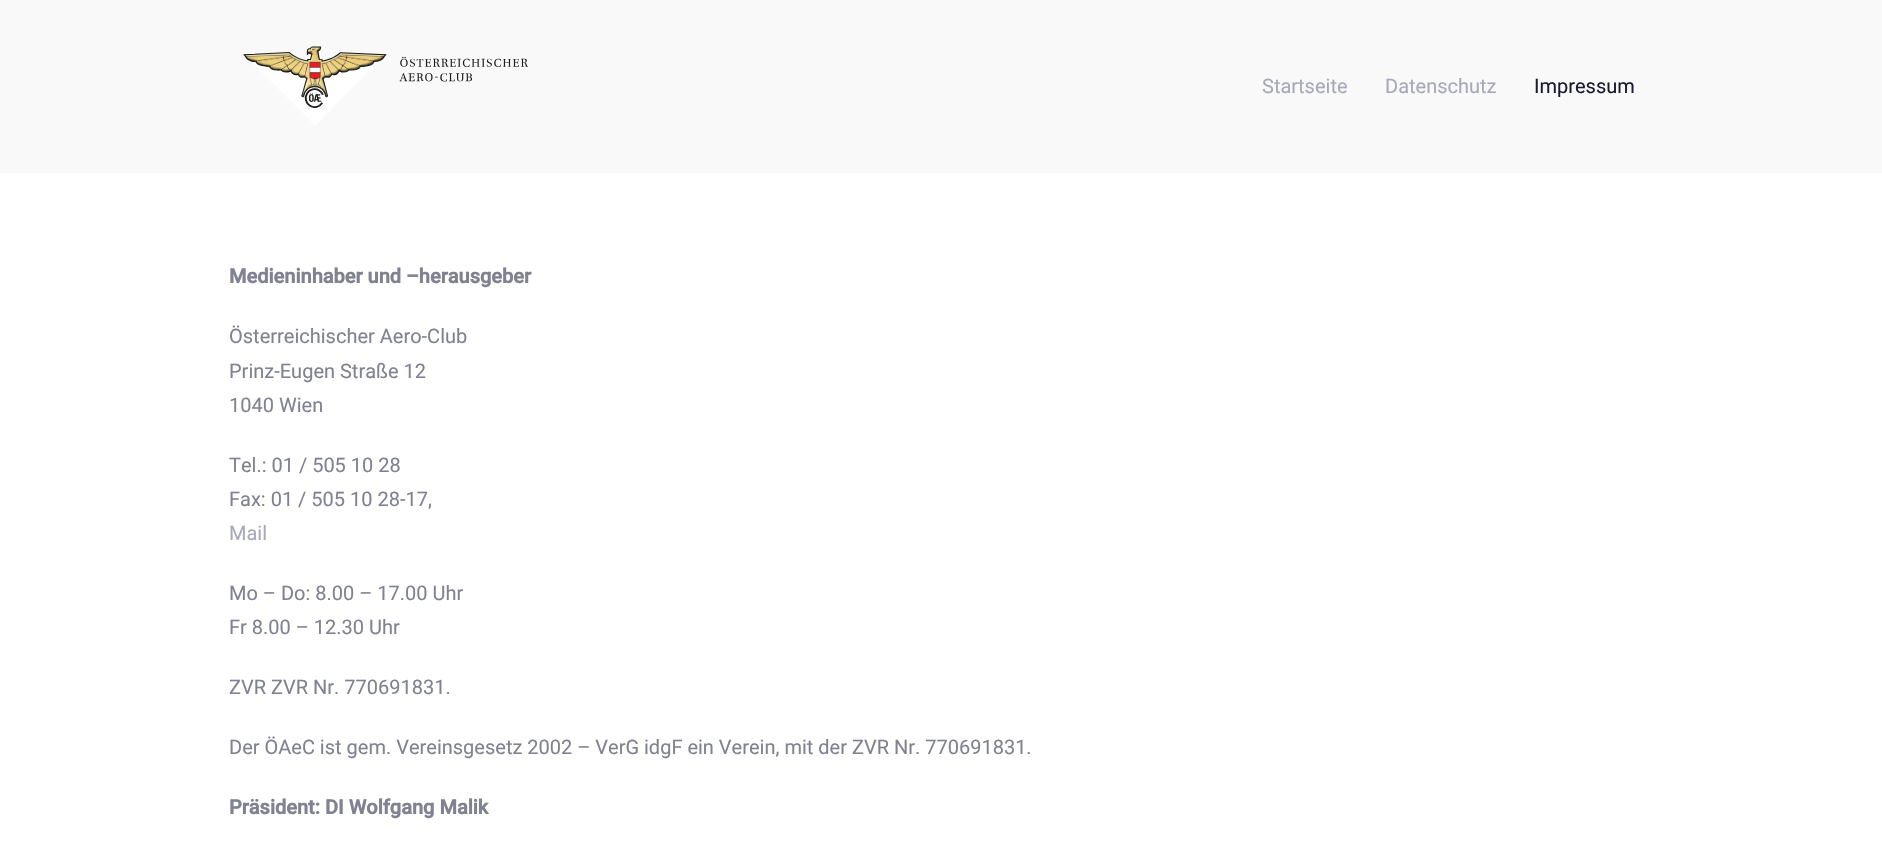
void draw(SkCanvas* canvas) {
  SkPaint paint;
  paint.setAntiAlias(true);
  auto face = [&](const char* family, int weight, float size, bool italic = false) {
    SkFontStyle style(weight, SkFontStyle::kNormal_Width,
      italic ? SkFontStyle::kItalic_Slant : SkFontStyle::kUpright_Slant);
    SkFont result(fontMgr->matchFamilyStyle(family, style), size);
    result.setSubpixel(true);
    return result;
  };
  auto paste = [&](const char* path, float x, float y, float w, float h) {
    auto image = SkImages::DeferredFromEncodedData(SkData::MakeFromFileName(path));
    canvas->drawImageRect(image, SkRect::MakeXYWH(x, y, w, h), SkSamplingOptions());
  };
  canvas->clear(0xffffffff);
  paint.setColor(0xfff9f9f9);
  canvas->drawRect(SkRect::MakeXYWH(0, 0, 1882, 173), paint);
  paste("img/1.png", 243, 46, 285, 79);
  auto f0 = face("Roboto", 400, 20);
  paint.setColor(0xffa7a9b8);
  canvas->drawString("Startseite", 1262, 93, f0, paint);
  canvas->drawString("Datenschutz", 1385, 93, f0, paint);
  paint.setColor(0xff181b31);
  canvas->drawString("Impressum", 1534, 93, f0, paint);
  auto f1 = face("Roboto", 700, 20);
  paint.setColor(0xff808291);
  canvas->drawString("Medieninhaber und –herausgeber", 229, 283, f1, paint);
  {
    const struct { const char* s; float x, y; } items[] = {
      {"Österreichischer Aero-Club", 229, 343},
      {"Prinz-Eugen Straße 12", 229, 378},
      {"1040 Wien", 229, 412},
      {"Tel.: 01 / 505 10 28", 229, 472},
      {"Fax: 01 / 505 10 28-17,", 229, 506},
    };
    for (auto [s, x, y] : items) {
      canvas->drawString(s, x, y, f0, paint);
    }
  }
  paint.setColor(0xffa7a9b8);
  canvas->drawString("Mail", 229, 540, f0, paint);
  paint.setColor(0xff808291);
  {
    const struct { const char* s; float x, y; } items[] = {
      {"Mo – Do: 8.00 – 17.00 Uhr", 229, 600},
      {"Fr 8.00 – 12.30 Uhr", 229, 634},
      {"ZVR ZVR Nr. 770691831.", 229, 694},
      {"Der ÖAeC ist gem. Vereinsgesetz 2002 – VerG idgF ein Verein, mit der ZVR Nr. 770691831.", 229, 754},
    };
    for (auto [s, x, y] : items) {
      canvas->drawString(s, x, y, f0, paint);
    }
  }
  canvas->drawString("Präsident: DI Wolfgang Malik", 229, 814, f1, paint);
}
